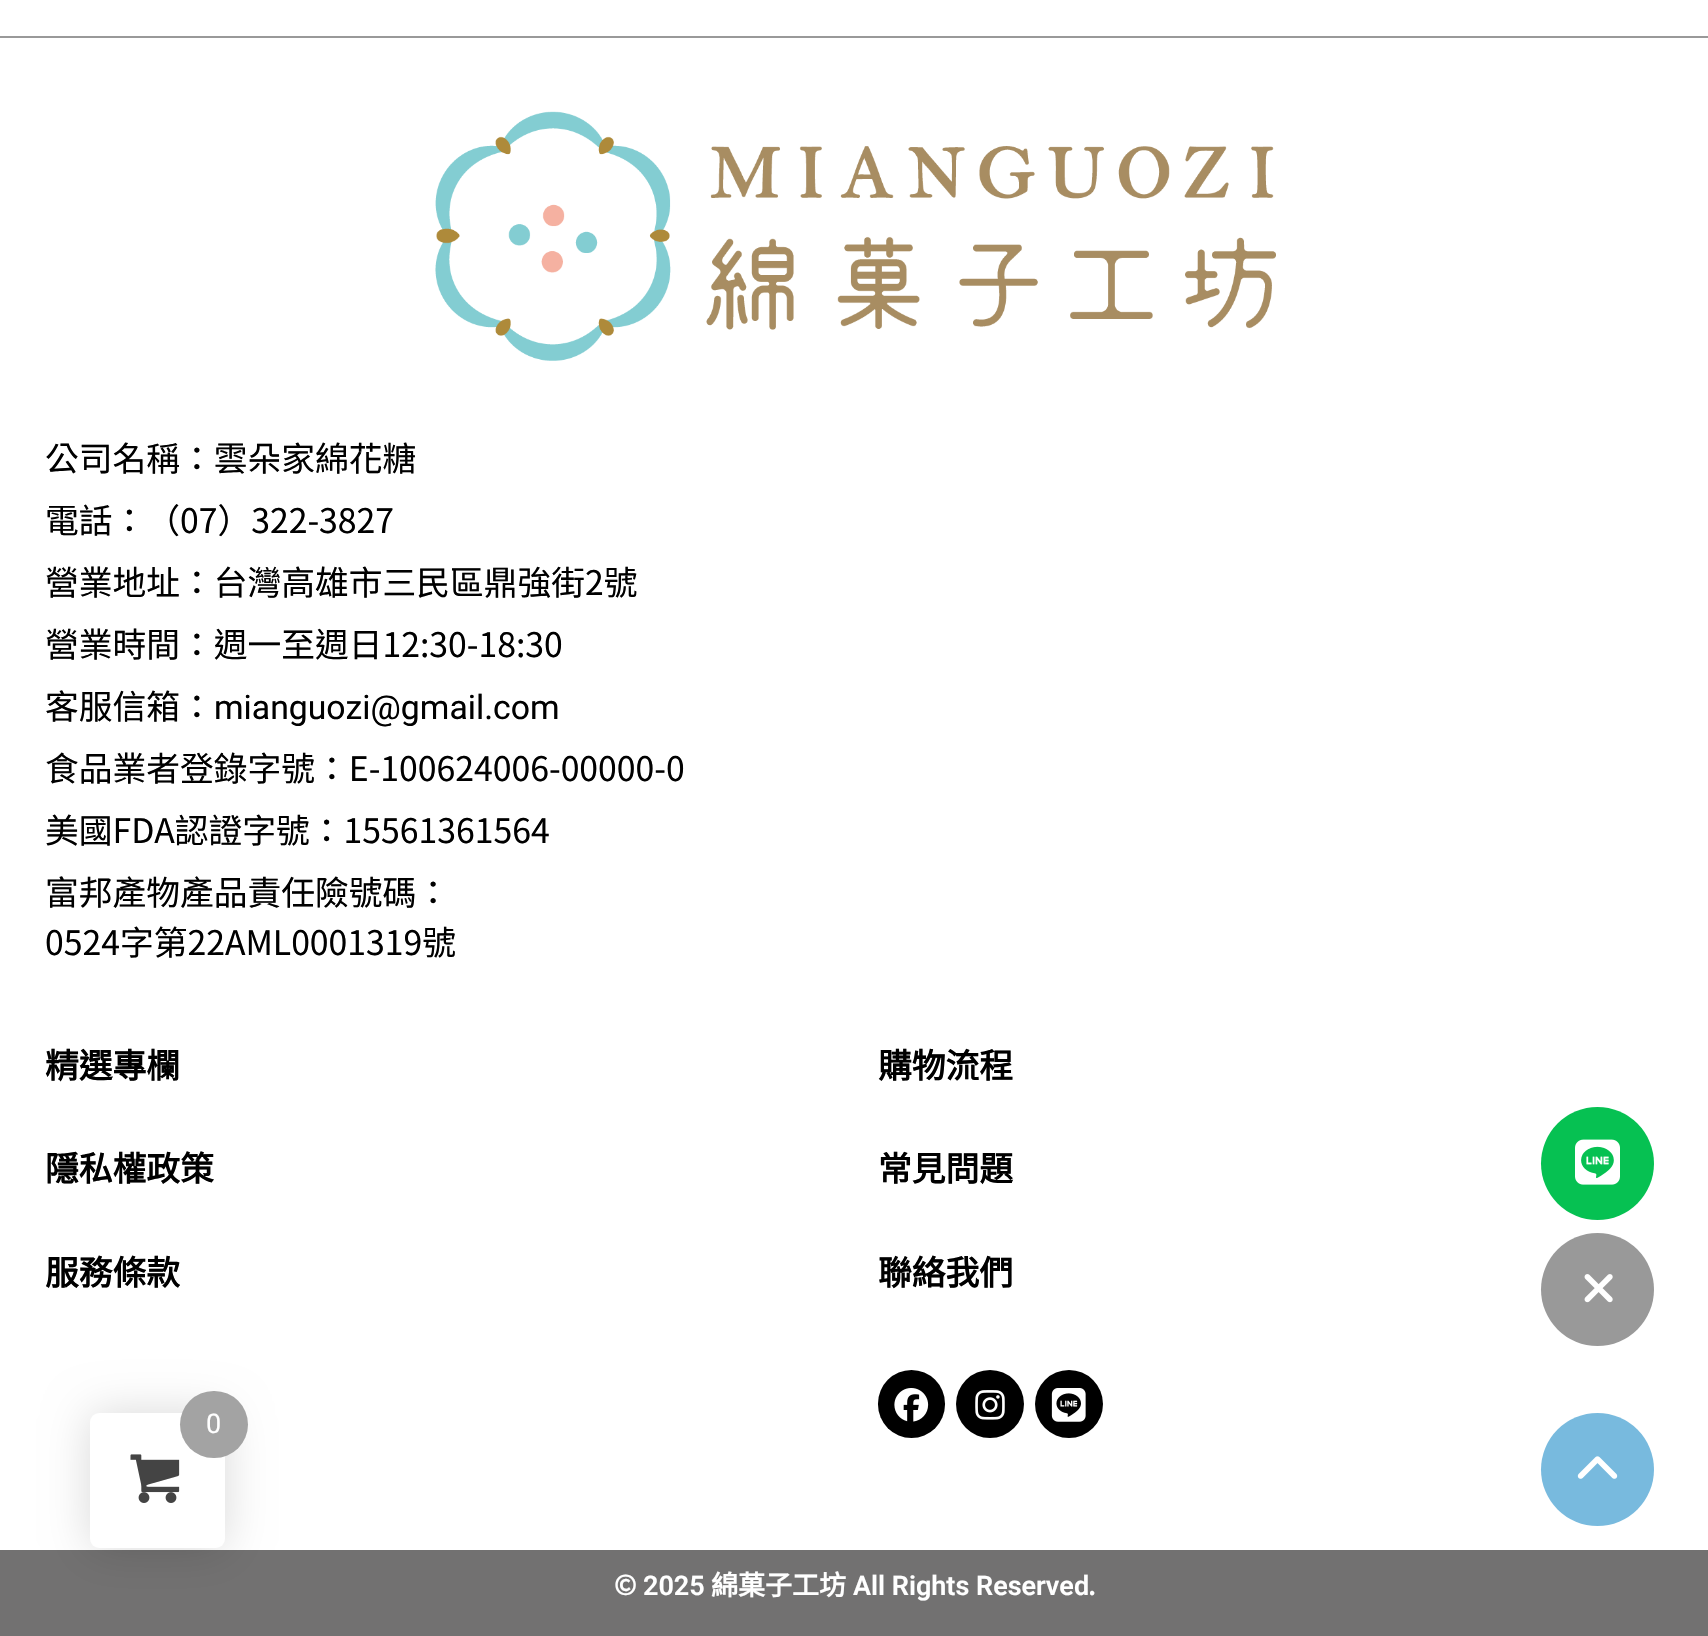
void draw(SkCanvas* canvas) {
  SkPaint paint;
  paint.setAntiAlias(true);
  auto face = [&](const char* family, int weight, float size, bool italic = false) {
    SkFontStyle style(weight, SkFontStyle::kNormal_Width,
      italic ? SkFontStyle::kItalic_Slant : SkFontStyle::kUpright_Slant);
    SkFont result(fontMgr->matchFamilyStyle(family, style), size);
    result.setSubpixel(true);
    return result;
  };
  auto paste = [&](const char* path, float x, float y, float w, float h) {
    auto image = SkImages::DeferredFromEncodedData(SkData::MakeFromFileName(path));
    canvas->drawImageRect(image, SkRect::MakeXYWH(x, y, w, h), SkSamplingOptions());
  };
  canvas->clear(0xffffffff);
  paint.setColor(0xff999999);
  canvas->drawRect(SkRect::MakeXYWH(0, 36, 1708, 2), paint);
  paste("img/1.png", 435, 111, 841, 250);
  paint.setColor(0xff000000);
  canvas->drawRoundRect(SkRect::MakeXYWH(878, 1370, 67, 68), 33.5f, 33.5f, paint);
  paste("img/2.png", 894, 1388, 35, 34);
  canvas->drawCircle(990, 1404, 34, paint);
  paste("img/3.png", 975, 1390, 30, 30);
  canvas->drawCircle(1069, 1404, 34, paint);
  paste("img/4.png", 1051, 1388, 35, 34);
  paint.setColor(0xff06c152);
  canvas->drawCircle(1597.5f, 1163.5f, 56.5f, paint);
  paste("img/5.png", 1575, 1139, 45, 46);
  paint.setColor(0xff999999);
  canvas->drawCircle(1597.5f, 1289.5f, 56.5f, paint);
  paste("img/6.png", 1584, 1274, 29, 29);
  paint.setColor(0xff78bade);
  canvas->drawCircle(1597.5f, 1469.5f, 56.5f, paint);
  paste("img/7.png", 1577, 1456, 41, 23);
  paint.setColor(0xff727171);
  canvas->drawRect(SkRect::MakeXYWH(0, 1550, 1708, 86), paint);
  paint.setColor(0x26000000);
  paint.setMaskFilter(SkMaskFilter::MakeBlur(kNormal_SkBlurStyle, 22.5f));
  canvas->drawRoundRect(SkRect::MakeXYWH(90, 1413, 135, 135), 9, 9, paint);
  paint.setMaskFilter(nullptr);
  paint.setColor(0xffffffff);
  canvas->drawRoundRect(SkRect::MakeXYWH(90, 1413, 135, 135), 9, 9, paint);
  paint.setColor(0xffa3a3a3);
  canvas->drawRoundRect(SkRect::MakeXYWH(180, 1391, 68, 67), 33.5f, 33.5f, paint);
  paste("img/8.png", 130, 1454, 50, 49);
  auto f0 = face("Noto Sans CJK TC", 400, 33.75f);
  paint.setColor(0xff000000);
  {
    const struct { const char* s; float x, y; } items[] = {
      {"公司名稱：雲朵家綿花糖", 45, 471},
      {"電話：（07）322-3827", 45, 533},
      {"營業地址：台灣高雄市三民區鼎強街2號", 45, 595},
      {"營業時間：週一至週日12:30-18:30", 45, 657},
      {"客服信箱：", 45, 719},
    };
    for (auto [s, x, y] : items) {
      canvas->drawString(s, x, y, f0, paint);
    }
  }
  auto f1 = face("Roboto", 400, 33.75f);
  canvas->drawString("mianguozi@gmail.com", 214, 719, f1, paint);
  {
    const struct { const char* s; float x, y; } items[] = {
      {"食品業者登錄字號：E-100624006-00000-0", 45, 781},
      {"美國FDA認證字號：15561361564", 45, 843},
      {"富邦產物產品責任險號碼：", 45, 905},
      {"0524字第22AML0001319號", 45, 955},
    };
    for (auto [s, x, y] : items) {
      canvas->drawString(s, x, y, f0, paint);
    }
  }
  auto f2 = face("Noto Sans CJK TC", 700, 33.75f);
  {
    const struct { const char* s; float x, y; } items[] = {
      {"精選專欄", 45, 1078},
      {"隱私權政策", 45, 1181},
      {"服務條款", 45, 1285},
      {"購物流程", 878, 1078},
      {"常見問題", 878, 1181},
      {"聯絡我們", 878, 1285},
    };
    for (auto [s, x, y] : items) {
      canvas->drawString(s, x, y, f2, paint);
    }
  }
  auto f3 = face("Noto Sans CJK TC", 700, 27);
  paint.setColor(0xffffffff);
  canvas->drawString("©", 614, 1595, f3, paint);
  auto f4 = face("Roboto", 600, 27);
  canvas->drawString("2025", 643, 1595, f4, paint);
  canvas->drawString("綿菓子工坊", 711, 1595, f3, paint);
  canvas->drawString("All Rights Reserved", 853, 1595, f4, paint);
  canvas->drawString(".", 1088, 1595, f3, paint);
  auto f5 = face("Roboto", 400, 27);
  canvas->drawString("0", 206, 1433, f5, paint);
}
